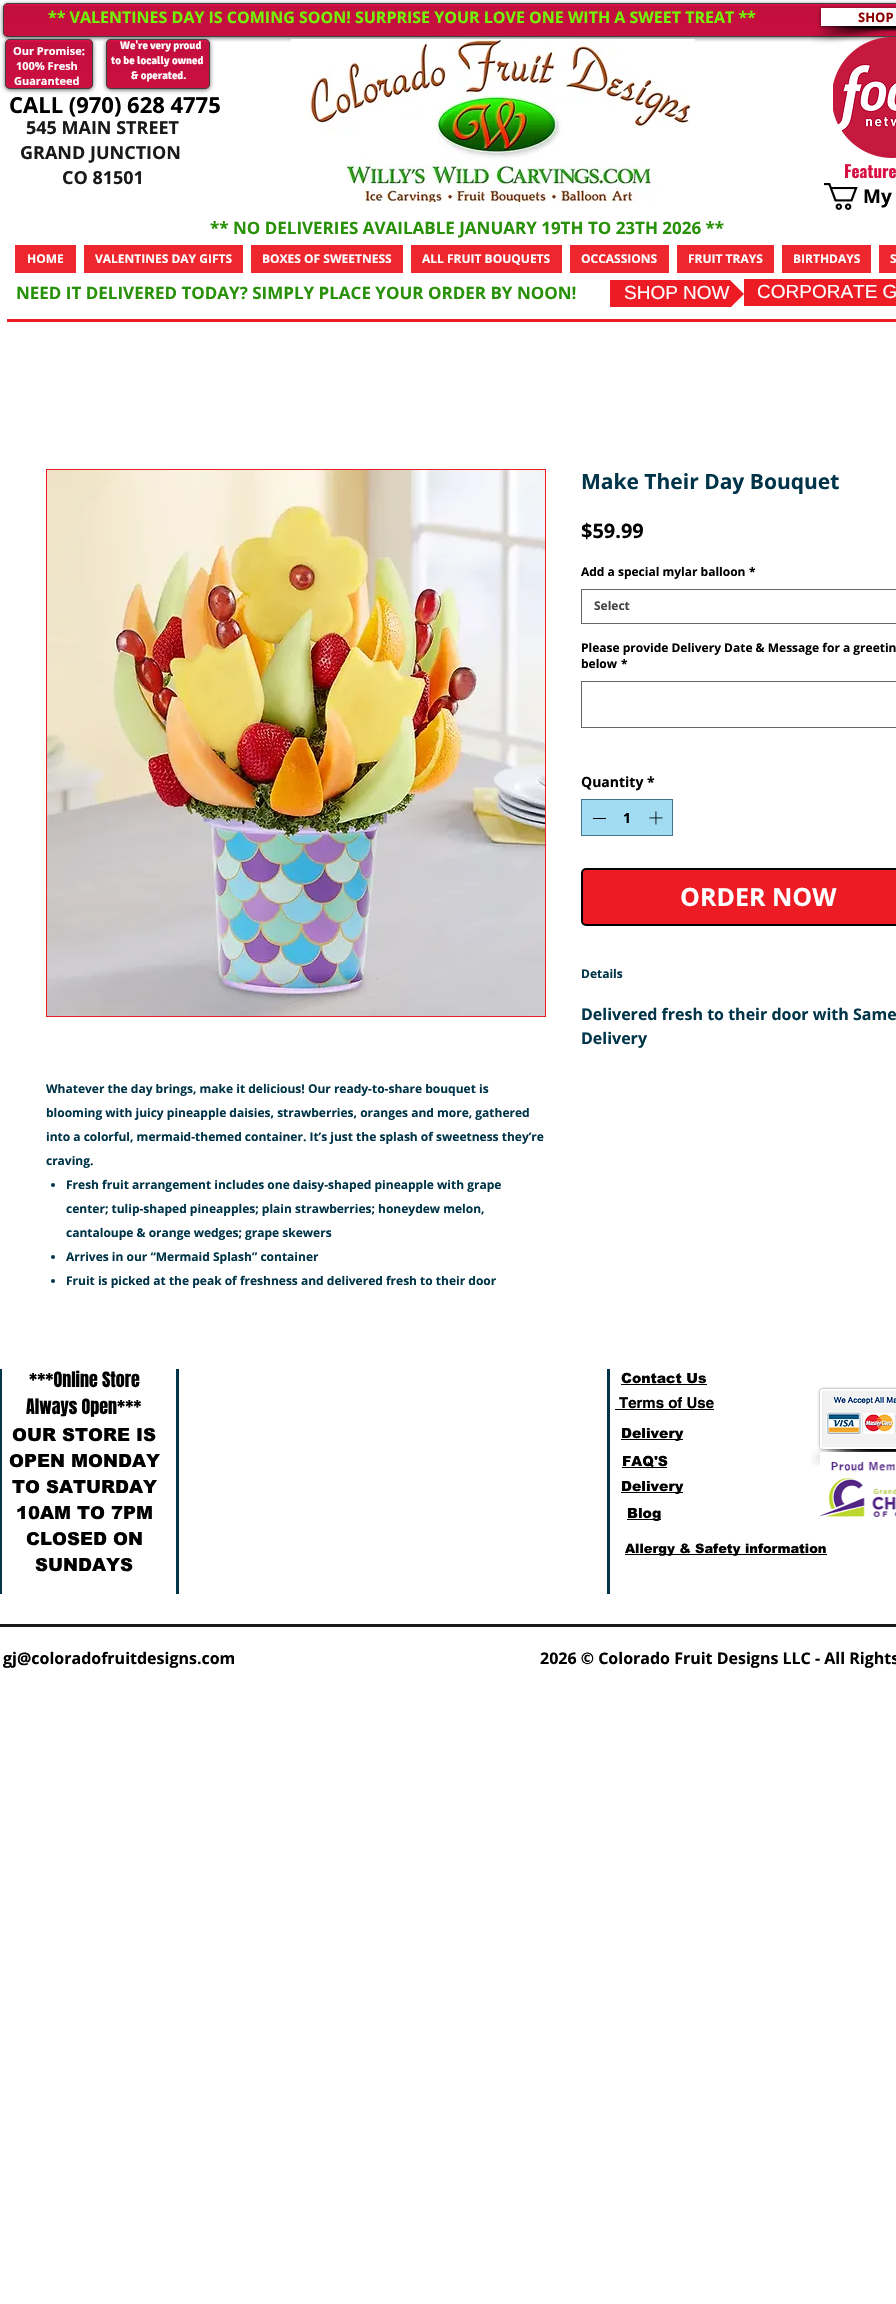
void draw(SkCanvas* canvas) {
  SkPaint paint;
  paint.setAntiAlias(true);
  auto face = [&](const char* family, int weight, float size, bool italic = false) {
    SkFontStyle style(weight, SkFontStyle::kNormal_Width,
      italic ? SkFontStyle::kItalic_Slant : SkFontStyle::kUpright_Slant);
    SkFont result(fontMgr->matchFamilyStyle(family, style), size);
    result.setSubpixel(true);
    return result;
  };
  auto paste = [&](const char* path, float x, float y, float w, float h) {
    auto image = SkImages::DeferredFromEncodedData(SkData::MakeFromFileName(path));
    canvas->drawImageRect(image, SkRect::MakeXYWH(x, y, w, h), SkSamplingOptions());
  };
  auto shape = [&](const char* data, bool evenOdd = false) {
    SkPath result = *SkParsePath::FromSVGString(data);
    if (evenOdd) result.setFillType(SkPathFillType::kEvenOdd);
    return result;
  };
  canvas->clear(0xffffffff);
  paint.setColor(0x99000000);
  paint.setMaskFilter(SkMaskFilter::MakeBlur(kNormal_SkBlurStyle, 2));
  canvas->drawRoundRect(SkRect::MakeXYWH(3, 4, 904, 34), 5, 5, paint);
  paint.setMaskFilter(nullptr);
  paint.setColor(0xffd61043);
  canvas->drawRoundRect(SkRect::MakeXYWH(3, 3, 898, 34), 5, 5, paint);
  paste("img/1.png", 3, 6, 893, 31);
  paint.setStroke(true);
  paint.setStrokeWidth(1);
  paint.setColor(0xff414141);
  canvas->drawRoundRect(SkRect::MakeXYWH(3.5f, 3.5f, 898, 33), 4.5f, 4.5f, paint);
  paste("img/2.png", 812, 26, 84, 18);
  paste("img/3.png", 823, 26, 73, 6);
  paint.setStroke(false);
  paint.setColor(0x99000000);
  paint.setMaskFilter(SkMaskFilter::MakeBlur(kNormal_SkBlurStyle, 2));
  canvas->drawRect(SkRect::MakeXYWH(821, 9, 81, 18), paint);
  paint.setMaskFilter(nullptr);
  paint.setColor(0xffffffff);
  canvas->drawRect(SkRect::MakeXYWH(821, 8, 75, 18), paint);
  paint.setColor(0x99000000);
  paint.setMaskFilter(SkMaskFilter::MakeBlur(kNormal_SkBlurStyle, 2));
  canvas->drawRoundRect(SkRect::MakeXYWH(5, 40, 88, 50), 5, 5, paint);
  paint.setMaskFilter(nullptr);
  paint.setColor(0xffd61043);
  canvas->drawRoundRect(SkRect::MakeXYWH(5, 39, 88, 50), 5, 5, paint);
  paste("img/4.png", 5, 42, 88, 47);
  paint.setStroke(true);
  paint.setColor(0xff414141);
  canvas->drawRoundRect(SkRect::MakeXYWH(5.5f, 39.5f, 87, 49), 4.5f, 4.5f, paint);
  paint.setStroke(false);
  paint.setColor(0x99000000);
  paint.setMaskFilter(SkMaskFilter::MakeBlur(kNormal_SkBlurStyle, 2));
  canvas->drawRoundRect(SkRect::MakeXYWH(106, 40, 104, 50), 5, 5, paint);
  paint.setMaskFilter(nullptr);
  paint.setColor(0xffd61043);
  canvas->drawRoundRect(SkRect::MakeXYWH(106, 39, 104, 50), 5, 5, paint);
  paste("img/5.png", 106, 42, 104, 47);
  paint.setStroke(true);
  paint.setColor(0xff414141);
  canvas->drawRoundRect(SkRect::MakeXYWH(106.5f, 39.5f, 103, 49), 4.5f, 4.5f, paint);
  paste("img/6.png", 291, 39, 404, 163);
  paste("img/7.png", 833, 37, 63, 121);
  paste("img/8.png", 824, 183, 34, 27);
  paint.setStroke(false);
  {
    const struct { float x, y, w, h; SkColor color; } items[] = {
      {15, 245, 61, 28, 0xffee272f},
      {84, 245, 159, 28, 0xffee272f},
      {251, 245, 152, 28, 0xffee272f},
      {411, 245, 151, 28, 0xffee272f},
      {570, 245, 99, 28, 0xffee272f},
      {677, 245, 97, 28, 0xffee272f},
      {782, 245, 89, 28, 0xffee272f},
      {879, 245, 17, 28, 0xffee272f},
      {610, 280, 84, 27, 0xffed1c24},
    };
    for (auto [x, y, w, h, color] : items) {
      paint.setColor(color);
      canvas->drawRect(SkRect::MakeXYWH(x, y, w, h), paint);
    }
  }
  canvas->save();
  canvas->clipRect(SkRect::MakeXYWH(610, 280, 134, 27));
  canvas->drawPath(shape("M744 294H694V244ZM694 294H744L694 344Z"), paint);
  canvas->restore();
  canvas->drawRect(SkRect::MakeXYWH(744, 279, 152, 27), paint);
  canvas->drawRect(SkRect::MakeXYWH(7, 319, 889, 3), paint);
  paint.setStroke(true);
  paint.setColor(0xff666666);
  canvas->drawRect(SkRect::MakeXYWH(581.5f, 589.5f, 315, 34), paint);
  canvas->drawRect(SkRect::MakeXYWH(581.5f, 681.5f, 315, 46), paint);
  paint.setStroke(false);
  paint.setColor(0xffa1dcf2);
  canvas->drawRect(SkRect::MakeXYWH(581.5f, 799.5f, 91, 36), paint);
  paint.setStroke(true);
  paint.setColor(0xff40778c);
  canvas->drawRect(SkRect::MakeXYWH(581.5f, 799.5f, 91, 36), paint);
  paint.setStroke(false);
  paint.setColor(0xff000000);
  canvas->drawRect(SkRect::MakeXYWH(593, 818, 13, 1), paint);
  paste("img/9.png", 649, 811, 14, 14);
  paint.setColor(0xffed1c24);
  canvas->drawRoundRect(SkRect::MakeXYWH(582, 869, 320, 56), 4, 4, paint);
  paint.setStroke(true);
  paint.setStrokeWidth(2);
  paint.setColor(0xff000000);
  canvas->drawRoundRect(SkRect::MakeXYWH(582, 869, 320, 56), 4, 4, paint);
  paint.setStrokeWidth(1);
  paint.setColor(0xffed1c24);
  canvas->drawRect(SkRect::MakeXYWH(46.5f, 469.5f, 499, 547), paint);
  paste("img/10.png", 47, 470, 498, 546);
  paint.setStroke(false);
  paint.setColor(0xff003448);
  canvas->drawCircle(53, 1185, 2, paint);
  canvas->drawCircle(53, 1257, 2, paint);
  canvas->drawCircle(53, 1281, 2, paint);
  {
    const struct { float x, y, w, h; SkColor color; } items[] = {
      {0, 1369, 2, 225, 0xff003448},
      {176, 1369, 3, 225, 0xff003448},
      {607, 1369, 3, 225, 0xff003448},
      {621, 1384, 86, 1, 0xff000000},
      {615, 1409, 99, 1, 0xff000000},
    };
    for (auto [x, y, w, h, color] : items) {
      paint.setColor(color);
      canvas->drawRect(SkRect::MakeXYWH(x, y, w, h), paint);
    }
  }
  paint.setColor(0x80000000);
  paint.setMaskFilter(SkMaskFilter::MakeBlur(kNormal_SkBlurStyle, 1.5f));
  canvas->drawRoundRect(SkRect::MakeXYWH(820, 1389, 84, 60), 3, 3, paint);
  paint.setMaskFilter(nullptr);
  paint.setColor(0xffffffff);
  canvas->drawRoundRect(SkRect::MakeXYWH(821, 1390, 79, 58), 2, 2, paint);
  paint.setStroke(true);
  paint.setStrokeWidth(2);
  canvas->drawRoundRect(SkRect::MakeXYWH(821, 1390, 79, 58), 2, 2, paint);
  paste("img/11.png", 822, 1391, 74, 56);
  paste("img/12.png", 811, 1449, 85, 17);
  paste("img/13.png", 828, 1449, 68, 3);
  paint.setStroke(false);
  paint.setColor(0xff000000);
  canvas->drawRect(SkRect::MakeXYWH(621, 1439, 62, 1), paint);
  canvas->drawRect(SkRect::MakeXYWH(622, 1467, 45, 1), paint);
  paste("img/14.png", 820, 1452, 76, 65);
  {
    const struct { float x, y, w, h; SkColor color; } items[] = {
      {621, 1492, 62, 1, 0xff000000},
      {627, 1519, 34, 1, 0xff000000},
      {625, 1554, 202, 1, 0xff000000},
      {0, 1624, 896, 3, 0xff181919},
    };
    for (auto [x, y, w, h, color] : items) {
      paint.setColor(color);
      canvas->drawRect(SkRect::MakeXYWH(x, y, w, h), paint);
    }
  }
  auto f0 = face("Open Sans", 700, 16);
  paint.setColor(0xff72f308);
  canvas->drawString("** VALENTINES DAY IS COMING SOON! SURPRISE YOUR LOVE ONE WITH A SWEET TREAT **", 48, 23, f0, paint);
  auto f1 = face("Open Sans", 700, 13);
  paint.setColor(0xff8b0000);
  canvas->drawString("SHOP", 858, 22, f1, paint);
  auto f2 = face("Open Sans", 700, 11);
  paint.setColor(0xffffffff);
  {
    const struct { const char* s; float x, y; } items[] = {
      {"Our Promise:", 13, 55},
      {"100% Fresh", 16, 70},
      {"Guaranteed", 14, 85},
    };
    for (auto [s, x, y] : items) {
      canvas->drawString(s, x, y, f2, paint);
    }
  }
  auto f3 = face("Signika", 700, 11);
  {
    const struct { const char* s; float x, y; } items[] = {
      {"We're very proud", 120, 49},
      {"to be locally owned", 111, 64},
      {"& operated.", 131, 79},
    };
    for (auto [s, x, y] : items) {
      canvas->drawString(s, x, y, f3, paint);
    }
  }
  auto f4 = face("Open Sans", 700, 22);
  paint.setColor(0xff000000);
  canvas->drawString("CALL (970) 628 4775", 9, 113, f4, paint);
  auto f5 = face("Open Sans", 700, 18);
  paint.setColor(0xff181919);
  {
    const struct { const char* s; float x, y; } items[] = {
      {"545 MAIN STREET", 26, 134},
      {"GRAND JUNCTION", 20, 159},
      {"CO 81501", 62, 184},
    };
    for (auto [s, x, y] : items) {
      canvas->drawString(s, x, y, f5, paint);
    }
  }
  auto f6 = face("Oswald", 700, 17);
  paint.setColor(0xffd61043);
  canvas->drawString("Feature", 844, 178, f6, paint);
  auto f7 = face("Open Sans", 700, 19);
  paint.setColor(0xff000000);
  canvas->drawString("My", 863, 203, f7, paint);
  auto f8 = face("Open Sans", 700, 17);
  paint.setColor(0xff289109);
  canvas->drawString("** NO DELIVERIES AVAILABLE JANUARY 19TH TO 23TH 2026 **", 210, 234, f8, paint);
  auto f9 = face("Open Sans", 700, 12);
  paint.setColor(0xffffffff);
  {
    const struct { const char* s; float x, y; } items[] = {
      {"HOME", 27, 263},
      {"VALENTINES DAY GIFTS", 95, 263},
      {"BOXES OF SWEETNESS", 262, 263},
      {"ALL FRUIT BOUQUETS", 422, 263},
      {"OCCASSIONS", 581, 263},
      {"FRUIT TRAYS", 688, 263},
      {"BIRTHDAYS", 793, 263},
      {"S", 890, 263},
    };
    for (auto [s, x, y] : items) {
      canvas->drawString(s, x, y, f9, paint);
    }
  }
  paint.setColor(0xff289109);
  canvas->drawString("NEED IT DELIVERED TODAY? SIMPLY PLACE YOUR ORDER BY NOON!", 16, 299, f8, paint);
  auto f10 = face("Liberation Sans", 400, 19);
  paint.setColor(0xffffffff);
  canvas->drawString("SHOP NOW", 624, 299, f10, paint);
  canvas->drawString("CORPORATE G", 757, 298, f10, paint);
  auto f11 = face("Open Sans", 700, 21);
  paint.setColor(0xff003448);
  canvas->drawString("Make Their Day Bouquet", 581, 489, f11, paint);
  auto f12 = face("Open Sans", 700, 20);
  paint.setColor(0xff000000);
  canvas->drawString("$59.99", 581, 538, f12, paint);
  canvas->drawString("Add a special mylar balloon", 581, 576, f9, paint);
  canvas->drawString("*", 749, 576, f9, paint);
  paint.setColor(0xff444444);
  canvas->drawString("Select", 594, 610, f9, paint);
  paint.setColor(0xff000000);
  {
    const struct { const char* s; float x, y; } items[] = {
      {"Please provide Delivery Date & Message for a greetin", 581, 652},
      {"below", 581, 668},
      {"*", 621, 668},
    };
    for (auto [s, x, y] : items) {
      canvas->drawString(s, x, y, f9, paint);
    }
  }
  auto f13 = face("Open Sans", 700, 14);
  {
    const struct { const char* s; float x, y; } items[] = {
      {"Quantity", 581, 787},
      {"*", 647, 787},
      {"1", 623, 823},
    };
    for (auto [s, x, y] : items) {
      canvas->drawString(s, x, y, f13, paint);
    }
  }
  auto f14 = face("Open Sans", 700, 25);
  paint.setColor(0xffffffff);
  canvas->drawString("ORDER NOW", 680, 906, f14, paint);
  paint.setColor(0xff003448);
  canvas->drawString("Details", 581, 978, f9, paint);
  canvas->drawString("Delivered fresh to their door with Same", 581, 1020, f0, paint);
  canvas->drawString("Delivery", 581, 1044, f0, paint);
  {
    const struct { const char* s; float x, y; } items[] = {
      {"Whatever the day brings, make it delicious! Our ready-to-share bouquet is", 46, 1093},
      {"blooming with juicy pineapple daisies, strawberries, oranges and more, gathered", 46, 1117},
      {"into a colorful, mermaid-themed container. It’s just the splash of sweetness they’re", 46, 1141},
      {"craving.", 46, 1165},
      {"Fresh fruit arrangement includes one daisy-shaped pineapple with grape", 66, 1189},
      {"center; tulip-shaped pineapples; plain strawberries; honeydew melon,", 66, 1213},
      {"cantaloupe & orange wedges; grape skewers", 66, 1237},
      {"Arrives in our “Mermaid Splash” container", 66, 1261},
      {"Fruit is picked at the peak of freshness and delivered fresh to their door", 66, 1285},
    };
    for (auto [s, x, y] : items) {
      canvas->drawString(s, x, y, f9, paint);
    }
  }
  auto f15 = face("Anton", 400, 18);
  paint.setColor(0xff000000);
  canvas->drawString("***Online Store", 29, 1387, f15, paint);
  canvas->drawString("Always Open***", 26, 1414, f15, paint);
  auto f16 = face("arial", 900, 18);
  {
    const struct { const char* s; float x, y; } items[] = {
      {"OUR STORE IS", 12, 1441},
      {"OPEN MONDAY", 9, 1467},
      {"TO SATURDAY", 12, 1493},
      {"10AM TO 7PM", 16, 1519},
      {"CLOSED ON", 26, 1545},
      {"SUNDAYS", 35, 1571},
    };
    for (auto [s, x, y] : items) {
      canvas->drawString(s, x, y, f16, paint);
    }
  }
  auto f17 = face("arial", 900, 14);
  canvas->drawString("Contact Us", 621, 1383, f17, paint);
  auto f18 = face("helvetica", 700, 15);
  canvas->drawString("Terms of Use", 619, 1408, f18, paint);
  {
    const struct { const char* s; float x, y; } items[] = {
      {"Delivery", 621, 1438},
      {"FAQ'S", 622, 1466},
      {"Delivery", 621, 1491},
      {"Blog", 627, 1518},
    };
    for (auto [s, x, y] : items) {
      canvas->drawString(s, x, y, f17, paint);
    }
  }
  auto f19 = face("arial", 900, 13);
  canvas->drawString("Allergy & Safety information", 625, 1553, f19, paint);
  canvas->drawString("gj@coloradofruitdesigns.com", 3, 1664, f0, paint);
  canvas->drawString("2026 © Colorado Fruit Designs LLC - All Rights", 540, 1664, f0, paint);
}
